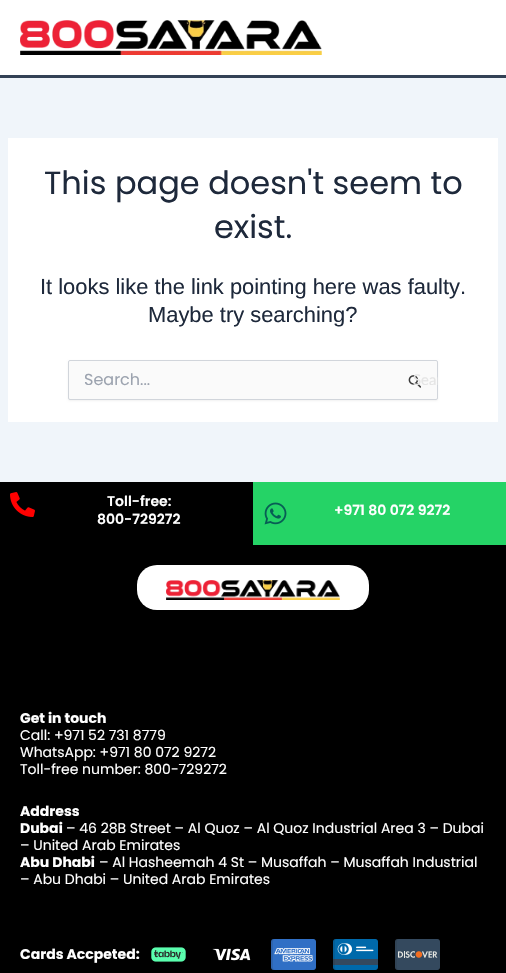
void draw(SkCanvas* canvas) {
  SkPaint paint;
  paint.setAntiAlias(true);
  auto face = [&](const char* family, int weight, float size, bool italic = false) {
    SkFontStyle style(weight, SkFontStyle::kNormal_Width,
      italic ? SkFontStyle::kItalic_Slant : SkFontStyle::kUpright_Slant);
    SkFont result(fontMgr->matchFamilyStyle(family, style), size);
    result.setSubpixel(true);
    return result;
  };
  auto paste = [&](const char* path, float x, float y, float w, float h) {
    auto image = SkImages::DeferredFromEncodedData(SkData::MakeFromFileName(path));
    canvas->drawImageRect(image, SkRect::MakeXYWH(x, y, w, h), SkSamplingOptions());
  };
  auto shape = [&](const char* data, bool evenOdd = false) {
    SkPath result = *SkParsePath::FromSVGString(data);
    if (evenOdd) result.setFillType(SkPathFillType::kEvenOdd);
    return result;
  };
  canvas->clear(0xfff0f5fa);
  paint.setColor(0xffffffff);
  canvas->drawRect(SkRect::MakeXYWH(0, 0, 506, 75), paint);
  paint.setColor(0xff334155);
  canvas->drawRect(SkRect::MakeXYWH(0, 75, 506, 3), paint);
  paste("img/1.png", 20, 20, 302, 35);
  paint.setColor(0xffffffff);
  canvas->drawRect(SkRect::MakeXYWH(8, 138, 490, 284), paint);
  paint.setColor(0x0d000000);
  paint.setMaskFilter(SkMaskFilter::MakeBlur(kNormal_SkBlurStyle, 1));
  canvas->drawRoundRect(SkRect::MakeXYWH(68, 361, 370, 40), 2, 2, paint);
  paint.setMaskFilter(nullptr);
  paint.setColor(0xfffafafa);
  canvas->drawRoundRect(SkRect::MakeXYWH(68.5f, 360.5f, 369, 39), 1.5f, 1.5f, paint);
  paint.setStroke(true);
  paint.setStrokeWidth(1);
  paint.setColor(0xffd1d5db);
  canvas->drawRoundRect(SkRect::MakeXYWH(68.5f, 360.5f, 369, 39), 1.5f, 1.5f, paint);
  paste("img/2.png", 408, 375, 13, 13);
  paint.setStroke(false);
  paint.setColor(0xff000000);
  canvas->drawRect(SkRect::MakeXYWH(0, 482, 253, 63), paint);
  paste("img/3.png", 10, 492, 25, 25);
  paint.setColor(0xff25d366);
  canvas->drawRect(SkRect::MakeXYWH(253, 482, 253, 63), paint);
  paste("img/4.png", 264, 502, 23, 23);
  paint.setColor(0xff000000);
  canvas->drawRect(SkRect::MakeXYWH(0, 545, 506, 428), paint);
  paint.setColor(0xffffffff);
  canvas->drawRoundRect(SkRect::MakeXYWH(137, 565, 232, 45), 20, 20, paint);
  paste("img/5.png", 166, 580, 174, 20);
  paste("img/6.png", 151, 947, 35, 15);
  paste("img/7.png", 212, 948, 39, 13);
  paste("img/8.png", 271, 939, 45, 31);
  paste("img/9.png", 333, 939, 45, 31);
  paste("img/10.png", 395, 939, 45, 31);
  auto f0 = face("Poppins", 400, 32);
  paint.setColor(0xff1e293b);
  canvas->drawString("This page doesn't seem to", 44, 194, f0, paint);
  canvas->drawString("exist.", 214, 238, f0, paint);
  auto f1 = face("Liberation Sans", 400, 21.9f);
  canvas->drawString("It looks like the link pointing here was faulty.", 40, 294, f1, paint);
  canvas->drawString("Maybe try searching?", 148, 322, f1, paint);
  auto f2 = face("Poppins", 400, 16);
  paint.setColor(0xff9ca3af);
  canvas->drawString("Search...", 84, 385, f2, paint);
  canvas->save();
  canvas->clipPath(shape("M395 360H436C437 360 438 361 438 362V398C438 399 437 400 436 400H395C394 400 393 399 393 398V362C393 361 394 360 395 360Z"), true);
  auto f3 = face("Lato", 400, 15);
  paint.setColor(0xffe5e5e5);
  canvas->drawString("Sear", 413, 385, f3, paint);
  canvas->restore();
  auto f4 = face("Poppins", 600, 14);
  paint.setColor(0xffffffff);
  {
    const struct { const char* s; float x, y; } items[] = {
      {"Toll-free:", 107, 506},
      {"800-729272", 97, 524},
      {"+971 80 072 9272", 334, 515},
    };
    for (auto [s, x, y] : items) {
      canvas->drawString(s, x, y, f4, paint);
    }
  }
  auto f5 = face("Poppins", 700, 14);
  canvas->drawString("Get in touch", 20, 723, f5, paint);
  auto f6 = face("Poppins", 400, 14);
  {
    const struct { const char* s; float x, y; } items[] = {
      {"Call: +971 52 731 8779", 20, 740},
      {"WhatsApp: +971 80 072 9272", 20, 757},
      {"Toll-free number: 800-729272", 20, 774},
    };
    for (auto [s, x, y] : items) {
      canvas->drawString(s, x, y, f6, paint);
    }
  }
  canvas->drawString("Address", 20, 816, f5, paint);
  canvas->drawString("Dubai", 20, 833, f5, paint);
  canvas->drawString("– 46 28B Street – Al Quoz – Al Quoz Industrial Area 3 – Dubai", 66, 833, f6, paint);
  canvas->drawString("– United Arab Emirates", 20, 850, f6, paint);
  canvas->drawString("Abu Dhabi", 20, 867, f5, paint);
  canvas->drawString("– Al Hasheemah 4 St – Musaffah – Musaffah Industrial", 99, 867, f6, paint);
  canvas->drawString("– Abu Dhabi – United Arab Emirates", 20, 884, f6, paint);
  canvas->drawString("Cards Accpeted:", 20, 959, f5, paint);
}
